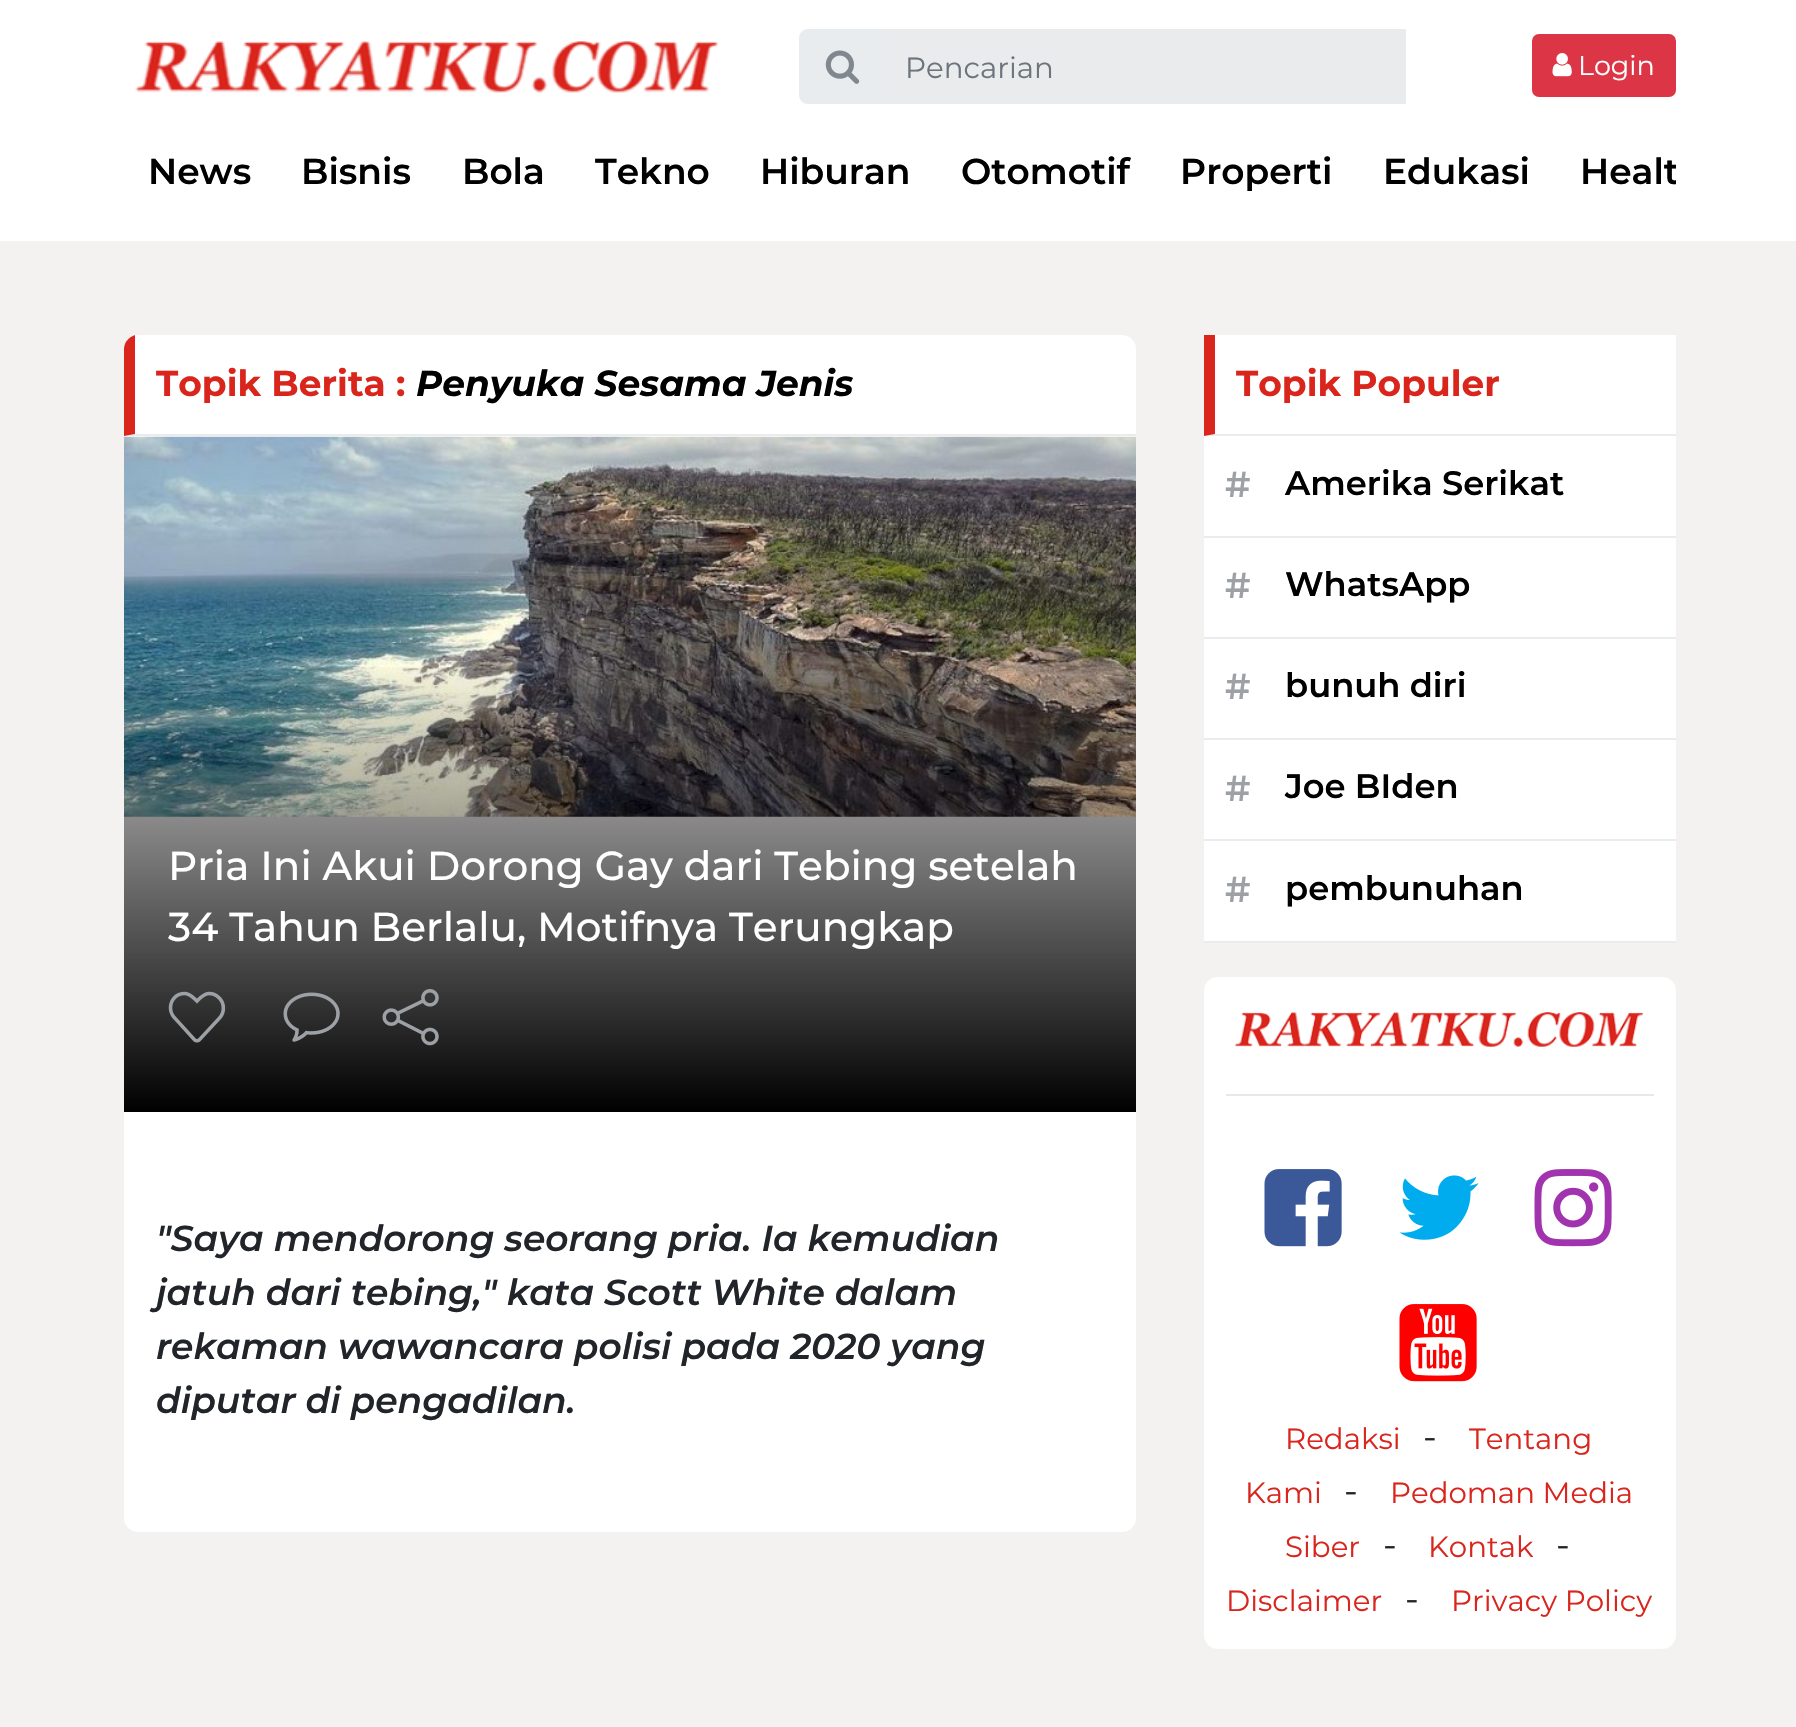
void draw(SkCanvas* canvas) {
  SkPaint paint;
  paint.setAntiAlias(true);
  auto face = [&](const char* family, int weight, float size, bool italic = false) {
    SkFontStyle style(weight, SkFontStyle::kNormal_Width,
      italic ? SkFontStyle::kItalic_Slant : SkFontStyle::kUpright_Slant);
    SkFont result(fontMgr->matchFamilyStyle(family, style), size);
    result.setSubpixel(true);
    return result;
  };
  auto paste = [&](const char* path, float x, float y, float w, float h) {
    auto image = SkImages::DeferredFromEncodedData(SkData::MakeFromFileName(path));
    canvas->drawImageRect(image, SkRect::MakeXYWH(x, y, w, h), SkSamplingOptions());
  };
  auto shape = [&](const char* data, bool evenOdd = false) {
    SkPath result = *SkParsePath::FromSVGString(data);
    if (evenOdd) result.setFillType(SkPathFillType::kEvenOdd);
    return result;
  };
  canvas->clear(0xfff3f2f1);
  paint.setColor(0xffffffff);
  canvas->drawRect(SkRect::MakeXYWH(0, 0, 1796, 241), paint);
  paste("img/1.png", 135, 41, 583, 52);
  paint.setColor(0xffe9ecef);
  canvas->drawPath(shape("M808 29H884V104H808C803 104 799 100 799 95V38C799 33 803 29 808 29Z"), paint);
  paste("img/2.png", 825, 50, 35, 34);
  paint.setColor(0xffeaebec);
  canvas->drawRect(SkRect::MakeXYWH(882, 29, 524, 75), paint);
  paint.setColor(0xffdc3545);
  canvas->drawRoundRect(SkRect::MakeXYWH(1533, 35, 142, 61), 6, 6, paint);
  paint.setStroke(true);
  paint.setStrokeWidth(2);
  canvas->drawRoundRect(SkRect::MakeXYWH(1533, 35, 142, 61), 6, 6, paint);
  paste("img/3.png", 1552, 53, 20, 24);
  paint.setStroke(false);
  paint.setColor(0xffffffff);
  canvas->drawRoundRect(SkRect::MakeXYWH(124, 335, 1012, 1197), 14, 14, paint);
  paint.setColor(0xffeaebec);
  canvas->drawPath(shape("M1136 436H124L135 434H1136Z"), paint);
  paint.setColor(0xffda251d);
  canvas->drawPath(shape("M124 436L135 434V335C129 337 124 342 124 349Z"), paint);
  paint.setColor(0xffd6d4d4);
  canvas->drawRect(SkRect::MakeXYWH(124, 816, 1012, 293), paint);
  paste("img/4.png", 124, 436, 1012, 381);
  {
    const SkColor colors[] = {0xff000000, 0x00000000};
    const float stops[] = {0, 1};
    const SkPoint ends[] = {{630, 1112}, {630, 657}};
    paint.setShader(SkGradientShader::MakeLinear(ends, colors, stops, 2, SkTileMode::kClamp));
    paint.setAlpha(255);
  }
  canvas->drawRect(SkRect::MakeXYWH(124, 667, 1012, 445), paint);
  paste("img/5.png", 168, 991, 58, 52);
  paste("img/6.png", 283, 992, 57, 50);
  paste("img/7.png", 382, 989, 57, 57);
  paint.setShader(nullptr);
  paint.setColor(0xffffffff);
  canvas->drawRect(SkRect::MakeXYWH(1204, 335, 472, 606), paint);
  paint.setColor(0xffeaebec);
  canvas->drawPath(shape("M1676 436H1204L1215 434H1676Z"), paint);
  paint.setColor(0xffda251d);
  canvas->drawPath(shape("M1204 436V335H1215V434Z"), paint);
  {
    const struct { float x, y, w, h; SkColor color; } items[] = {
      {1204, 536, 472, 2, 0xffeaebec},
      {1204, 637, 472, 2, 0xffeaebec},
      {1204, 738, 472, 2, 0xffeaebec},
      {1204, 839, 472, 2, 0xffeaebec},
      {1204, 941, 472, 2, 0xffeaebec},
    };
    for (auto [x, y, w, h, color] : items) {
      paint.setColor(color);
      canvas->drawRect(SkRect::MakeXYWH(x, y, w, h), paint);
    }
  }
  paint.setColor(0xffffffff);
  canvas->drawRoundRect(SkRect::MakeXYWH(1204, 977, 472, 672), 14, 14, paint);
  paste("img/8.png", 1235, 1012, 408, 35);
  paint.setColor(0xffeae7e7);
  canvas->drawRect(SkRect::MakeXYWH(1226, 1094, 428, 2), paint);
  paste("img/9.png", 1264, 1169, 78, 78);
  paste("img/10.png", 1399, 1175, 80, 65);
  paste("img/11.png", 1534, 1169, 78, 78);
  paste("img/12.png", 1399, 1304, 78, 78);
  auto f0 = face("Montserrat", 400, 29.25f);
  paint.setColor(0xff6c757d);
  canvas->drawString("Pencarian", 905, 78, f0, paint);
  auto f1 = face("Montserrat", 400, 27);
  paint.setColor(0xffffffff);
  canvas->drawString("Login", 1578, 75, f1, paint);
  auto f2 = face("Montserrat", 600, 36);
  paint.setColor(0xff000000);
  {
    const struct { const char* s; float x, y; } items[] = {
      {"News", 148, 184},
      {"Bisnis", 301, 184},
      {"Bola", 462, 184},
      {"Tekno", 595, 184},
      {"Hiburan", 760, 184},
      {"Otomotif", 961, 184},
      {"Properti", 1180, 184},
      {"Edukasi", 1383, 184},
    };
    for (auto [s, x, y] : items) {
      canvas->drawString(s, x, y, f2, paint);
    }
  }
  canvas->save();
  canvas->clipRect(SkRect::MakeXYWH(124, 128, 1552, 90));
  canvas->drawString("Healt", 1580, 184, f2, paint);
  canvas->restore();
  auto f3 = face("Montserrat", 700, 36);
  paint.setColor(0xffda251d);
  canvas->drawString("Topik Berita :", 156, 396, f3, paint);
  auto f4 = face("Montserrat", 700, 36, true);
  paint.setColor(0xff000000);
  canvas->drawString("Penyuka Sesama Jenis", 416, 396, f4, paint);
  auto f5 = face("Montserrat", 500, 40.5f);
  paint.setColor(0xffffffff);
  canvas->drawString("Pria Ini Akui Dorong Gay dari Tebing setelah", 168, 880, f5, paint);
  canvas->drawString("34 Tahun Berlalu, Motifnya Terungkap", 168, 941, f5, paint);
  auto f6 = face("Montserrat", 600, 36, true);
  paint.setColor(0xff212529);
  {
    const struct { const char* s; float x, y; } items[] = {
      {"\"Saya mendorong seorang pria. Ia kemudian", 156, 1251},
      {"jatuh dari tebing,\" kata Scott White dalam", 156, 1305},
      {"rekaman wawancara polisi pada 2020 yang", 156, 1359},
      {"diputar di pengadilan.", 156, 1413},
    };
    for (auto [s, x, y] : items) {
      canvas->drawString(s, x, y, f6, paint);
    }
  }
  paint.setColor(0xffda251d);
  canvas->drawString("Topik Populer", 1236, 396, f3, paint);
  paint.setColor(0xff9da1a6);
  canvas->drawString("#", 1225, 497, f2, paint);
  auto f7 = face("Montserrat", 600, 33.75f);
  paint.setColor(0xff000000);
  canvas->drawString("Amerika Serikat", 1285, 495, f7, paint);
  paint.setColor(0xff9da1a6);
  canvas->drawString("#", 1225, 598, f2, paint);
  paint.setColor(0xff000000);
  canvas->drawString("WhatsApp", 1285, 596, f7, paint);
  paint.setColor(0xff9da1a6);
  canvas->drawString("#", 1225, 699, f2, paint);
  paint.setColor(0xff000000);
  canvas->drawString("bunuh diri", 1285, 697, f7, paint);
  paint.setColor(0xff9da1a6);
  canvas->drawString("#", 1225, 801, f2, paint);
  paint.setColor(0xff000000);
  canvas->drawString("Joe BIden", 1285, 798, f7, paint);
  paint.setColor(0xff9da1a6);
  canvas->drawString("#", 1225, 902, f2, paint);
  paint.setColor(0xff000000);
  canvas->drawString("pembunuhan", 1285, 900, f7, paint);
  paint.setColor(0xffda251d);
  canvas->drawString("Redaksi", 1285, 1449, f0, paint);
  auto f8 = face("Montserrat", 400, 36);
  paint.setColor(0xff212529);
  canvas->drawString("-", 1423, 1449, f8, paint);
  paint.setColor(0xffda251d);
  canvas->drawString("Tentang", 1469, 1449, f0, paint);
  canvas->drawString("Kami", 1245, 1503, f0, paint);
  paint.setColor(0xff212529);
  canvas->drawString("-", 1344, 1503, f8, paint);
  paint.setColor(0xffda251d);
  canvas->drawString("Pedoman Media", 1390, 1503, f0, paint);
  canvas->drawString("Siber", 1285, 1557, f0, paint);
  paint.setColor(0xff212529);
  canvas->drawString("-", 1383, 1557, f8, paint);
  paint.setColor(0xffda251d);
  canvas->drawString("Kontak", 1428, 1557, f0, paint);
  paint.setColor(0xff212529);
  canvas->drawString("-", 1556, 1557, f8, paint);
  paint.setColor(0xffda251d);
  canvas->drawString("Disclaimer", 1226, 1611, f0, paint);
  paint.setColor(0xff212529);
  canvas->drawString("-", 1405, 1611, f8, paint);
  paint.setColor(0xffda251d);
  canvas->drawString("Privacy Policy", 1451, 1611, f0, paint);
}
